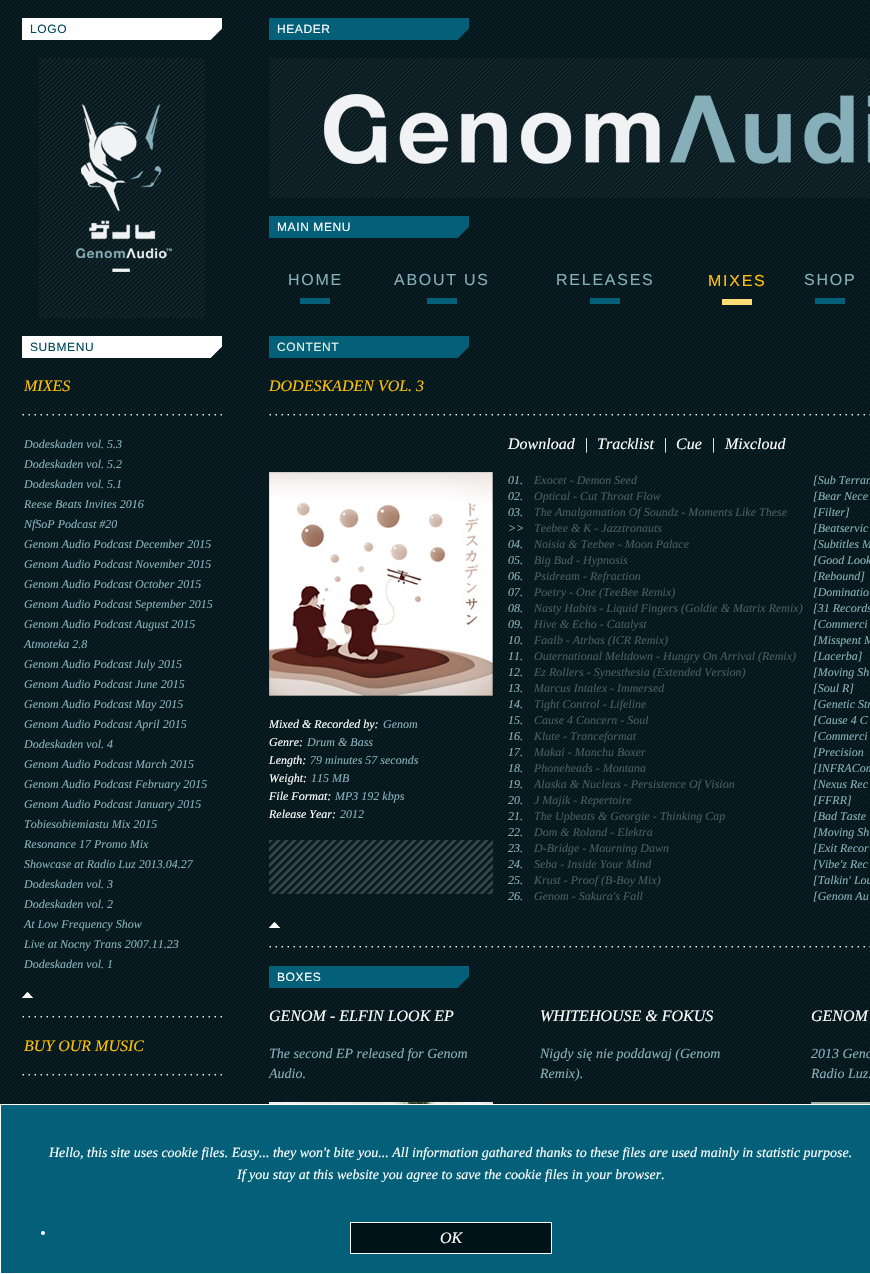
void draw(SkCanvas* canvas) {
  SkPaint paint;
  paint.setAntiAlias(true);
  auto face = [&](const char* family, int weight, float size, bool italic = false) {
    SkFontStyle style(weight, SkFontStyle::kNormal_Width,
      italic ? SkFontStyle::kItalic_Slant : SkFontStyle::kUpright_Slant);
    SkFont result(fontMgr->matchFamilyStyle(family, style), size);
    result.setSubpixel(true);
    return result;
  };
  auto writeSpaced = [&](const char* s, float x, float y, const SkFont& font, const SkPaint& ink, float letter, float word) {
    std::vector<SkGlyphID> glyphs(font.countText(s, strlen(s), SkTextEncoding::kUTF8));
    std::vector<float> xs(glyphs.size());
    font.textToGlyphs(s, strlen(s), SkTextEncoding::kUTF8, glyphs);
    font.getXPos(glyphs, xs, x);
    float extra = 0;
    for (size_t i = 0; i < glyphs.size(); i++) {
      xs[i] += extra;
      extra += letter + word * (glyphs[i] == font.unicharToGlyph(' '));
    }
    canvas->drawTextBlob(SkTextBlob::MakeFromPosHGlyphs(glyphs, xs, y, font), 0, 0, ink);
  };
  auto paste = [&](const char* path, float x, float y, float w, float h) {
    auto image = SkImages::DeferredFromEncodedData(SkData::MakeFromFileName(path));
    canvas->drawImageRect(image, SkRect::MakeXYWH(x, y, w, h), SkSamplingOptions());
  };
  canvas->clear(0xff001318);
  paste("img/1.png", 0, 0, 870, 1104);
  paste("img/2.png", 22, 18, 200, 22);
  paste("img/3.png", 39, 58, 166, 260);
  paste("img/4.png", 22, 336, 200, 22);
  paste("img/5.png", 22, 414, 200, 2);
  paste("img/6.png", 22, 992, 11, 6);
  paste("img/7.png", 22, 1016, 200, 2);
  paste("img/5.png", 22, 1074, 200, 2);
  paste("img/8.png", 269, 18, 200, 22);
  paste("img/9.png", 269, 58, 601, 140);
  paste("img/10.png", 269, 216, 200, 22);
  {
    const struct { float x, y, w, h; SkColor color; } items[] = {
      {300, 298, 30, 6, 0xff036078},
      {427, 298, 30, 6, 0xff036078},
      {590, 298, 30, 6, 0xff036078},
      {722, 299, 30, 6, 0xffffdd75},
      {815, 298, 30, 6, 0xff036078},
    };
    for (auto [x, y, w, h, color] : items) {
      paint.setColor(color);
      canvas->drawRect(SkRect::MakeXYWH(x, y, w, h), paint);
    }
  }
  paste("img/10.png", 269, 336, 200, 22);
  paste("img/11.png", 269, 414, 601, 2);
  paste("img/12.png", 269, 472, 224, 224);
  paste("img/13.png", 269, 840, 224, 54);
  paste("img/14.png", 269, 922, 11, 6);
  paste("img/11.png", 269, 946, 601, 2);
  paste("img/8.png", 269, 966, 200, 22);
  paste("img/15.png", 269, 1102, 224, 2);
  paste("img/16.png", 540, 1102, 224, 2);
  paste("img/17.png", 811, 1102, 59, 2);
  canvas->drawRect(SkRect::MakeXYWH(1, 1105, 869, 168), paint);
  paste("img/18.png", 1, 1105, 869, 4);
  paint.setStroke(true);
  paint.setStrokeWidth(1);
  paint.setColor(0xffffffff);
  canvas->drawRect(SkRect::MakeXYWH(0.5f, 1104.5f, 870, 169), paint);
  paint.setStroke(false);
  canvas->drawCircle(43, 1233, 2, paint);
  paint.setColor(0xff001318);
  canvas->drawRect(SkRect::MakeXYWH(350.5f, 1222.5f, 201, 31), paint);
  paint.setStroke(true);
  paint.setColor(0xffffffff);
  canvas->drawRect(SkRect::MakeXYWH(350.5f, 1222.5f, 201, 31), paint);
  auto f0 = face("Liberation Sans", 400, 12);
  paint.setStroke(false);
  paint.setColor(0xff00485b);
  writeSpaced("LOGO", 30, 33, f0, paint, 0.6f, 0);
  writeSpaced("SUBMENU", 30, 351, f0, paint, 0.6f, 0);
  auto f1 = face("Liberation Serif", 400, 16, true);
  paint.setColor(0xffffc106);
  canvas->drawString("MIXES", 24, 391, f1, paint);
  auto f2 = face("Liberation Serif", 400, 12, true);
  paint.setColor(0xff87afba);
  {
    const struct { const char* s; float x, y; } items[] = {
      {"Dodeskaden vol. 5.3", 24, 448},
      {"Dodeskaden vol. 5.2", 24, 468},
      {"Dodeskaden vol. 5.1", 24, 488},
      {"Reese Beats Invites 2016", 24, 508},
      {"NfSoP Podcast #20", 24, 528},
      {"Genom Audio Podcast December 2015", 24, 548},
      {"Genom Audio Podcast November 2015", 24, 568},
      {"Genom Audio Podcast October 2015", 24, 588},
      {"Genom Audio Podcast September 2015", 24, 608},
      {"Genom Audio Podcast August 2015", 24, 628},
      {"Atmoteka 2.8", 24, 648},
      {"Genom Audio Podcast July 2015", 24, 668},
      {"Genom Audio Podcast June 2015", 24, 688},
      {"Genom Audio Podcast May 2015", 24, 708},
      {"Genom Audio Podcast April 2015", 24, 728},
      {"Dodeskaden vol. 4", 24, 748},
      {"Genom Audio Podcast March 2015", 24, 768},
      {"Genom Audio Podcast February 2015", 24, 788},
      {"Genom Audio Podcast January 2015", 24, 808},
      {"Tobiesobiemiastu Mix 2015", 24, 828},
      {"Resonance 17 Promo Mix", 24, 848},
      {"Showcase at Radio Luz 2013.04.27", 24, 868},
      {"Dodeskaden vol. 3", 24, 888},
      {"Dodeskaden vol. 2", 24, 908},
      {"At Low Frequency Show", 24, 928},
      {"Live at Nocny Trans 2007.11.23", 24, 948},
      {"Dodeskaden vol. 1", 24, 968},
    };
    for (auto [s, x, y] : items) {
      canvas->drawString(s, x, y, f2, paint);
    }
  }
  paint.setColor(0xffffc106);
  canvas->drawString("BUY OUR MUSIC", 24, 1051, f1, paint);
  paint.setColor(0xffffffff);
  writeSpaced("HEADER", 277, 33, f0, paint, 0.6f, 0);
  writeSpaced("MAIN MENU", 277, 231, f0, paint, 0.6f, 0);
  auto f3 = face("Liberation Sans", 400, 16);
  paint.setColor(0xff87afba);
  {
    const struct { const char* s; float x, y; } items[] = {
      {"HOME", 288, 285},
      {"ABOUT US", 394, 285},
      {"RELEASES", 556, 285},
    };
    for (auto [s, x, y] : items) {
      writeSpaced(s, x, y, f3, paint, 1.75f, 0);
    }
  }
  paint.setColor(0xffffc106);
  writeSpaced("MIXES", 708, 286, f3, paint, 1.75f, 0);
  paint.setColor(0xff87afba);
  writeSpaced("SHOP", 804, 285, f3, paint, 1.75f, 0);
  paint.setColor(0xffeaf2e7);
  writeSpaced("CONTENT", 277, 351, f0, paint, 0.6f, 0);
  paint.setColor(0xffffc106);
  canvas->drawString("DODESKADEN VOL. 3", 269, 391, f1, paint);
  paint.setColor(0xffffffff);
  {
    const struct { const char* s; float x, y; } items[] = {
      {"Download", 508, 449},
      {"|", 584, 449},
      {"Tracklist", 597, 449},
      {"|", 663, 449},
      {"Cue", 676, 449},
      {"|", 711, 449},
      {"Mixcloud", 725, 449},
    };
    for (auto [s, x, y] : items) {
      canvas->drawString(s, x, y, f1, paint);
    }
  }
  canvas->drawString("Mixed & Recorded by:", 269, 728, f2, paint);
  paint.setColor(0xff87afba);
  canvas->drawString("Genom", 383, 728, f2, paint);
  paint.setColor(0xffffffff);
  canvas->drawString("Genre:", 269, 746, f2, paint);
  paint.setColor(0xff87afba);
  canvas->drawString("Drum & Bass", 307, 746, f2, paint);
  paint.setColor(0xffffffff);
  canvas->drawString("Length:", 269, 764, f2, paint);
  paint.setColor(0xff87afba);
  canvas->drawString("79 minutes 57 seconds", 310, 764, f2, paint);
  paint.setColor(0xffffffff);
  canvas->drawString("Weight:", 269, 782, f2, paint);
  paint.setColor(0xff87afba);
  canvas->drawString("115 MB", 311, 782, f2, paint);
  paint.setColor(0xffffffff);
  canvas->drawString("File Format:", 269, 800, f2, paint);
  paint.setColor(0xff87afba);
  canvas->drawString("MP3 192 kbps", 335, 800, f2, paint);
  paint.setColor(0xffffffff);
  canvas->drawString("Release Year:", 269, 818, f2, paint);
  paint.setColor(0xff87afba);
  {
    const struct { const char* s; float x, y; } items[] = {
      {"2012", 340, 818},
      {"01.", 508, 484},
      {"02.", 508, 500},
      {"03.", 508, 516},
      {">>", 508, 532},
      {"04.", 508, 548},
      {"05.", 508, 564},
      {"06.", 508, 580},
      {"07.", 508, 596},
      {"08.", 508, 612},
      {"09.", 508, 628},
      {"10.", 508, 644},
      {"11.", 508, 660},
      {"12.", 508, 676},
      {"13.", 508, 692},
      {"14.", 508, 708},
      {"15.", 508, 724},
      {"16.", 508, 740},
      {"17.", 508, 756},
      {"18.", 508, 772},
      {"19.", 508, 788},
      {"20.", 508, 804},
      {"21.", 508, 820},
      {"22.", 508, 836},
      {"23.", 508, 852},
      {"24.", 508, 868},
      {"25.", 508, 884},
      {"26.", 508, 900},
    };
    for (auto [s, x, y] : items) {
      canvas->drawString(s, x, y, f2, paint);
    }
  }
  paint.setColor(0xff475c62);
  {
    const struct { const char* s; float x, y; } items[] = {
      {"Exocet - Demon Seed", 534, 484},
      {"Optical - Cut Throat Flow", 534, 500},
      {"The Amalgamation Of Soundz - Moments Like These", 534, 516},
      {"Teebee & K - Jazztronauts", 534, 532},
      {"Noisia & Teebee - Moon Palace", 534, 548},
      {"Big Bud - Hypnosis", 534, 564},
      {"Psidream - Refraction", 534, 580},
      {"Poetry - One (TeeBee Remix)", 534, 596},
      {"Nasty Habits - Liquid Fingers (Goldie & Matrix Remix)", 534, 612},
      {"Hive & Echo - Catalyst", 534, 628},
      {"Faalb - Atrbas (ICR Remix)", 534, 644},
      {"Outernational Meltdown - Hungry On Arrival (Remix)", 534, 660},
      {"Ez Rollers - Synesthesia (Extended Version)", 534, 676},
      {"Marcus Intalex - Immersed", 534, 692},
      {"Tight Control - Lifeline", 534, 708},
      {"Cause 4 Concern - Soul", 534, 724},
      {"Klute - Tranceformat", 534, 740},
      {"Makai - Manchu Boxer", 534, 756},
      {"Phoneheads - Montana", 534, 772},
      {"Alaska & Nucleus - Persistence Of Vision", 534, 788},
      {"J Majik - Repertoire", 534, 804},
      {"The Upbeats & Georgie - Thinking Cap", 534, 820},
      {"Dom & Roland - Elektra", 534, 836},
      {"D-Bridge - Mourning Dawn", 534, 852},
      {"Seba - Inside Your Mind", 534, 868},
      {"Krust - Proof (B-Boy Mix)", 534, 884},
      {"Genom - Sakura's Fall", 534, 900},
    };
    for (auto [s, x, y] : items) {
      canvas->drawString(s, x, y, f2, paint);
    }
  }
  paint.setColor(0xff87afba);
  {
    const struct { const char* s; float x, y; } items[] = {
      {"[Sub Terran", 813, 484},
      {"[Bear Nece", 813, 500},
      {"[Filter]", 813, 516},
      {"[Beatservic", 813, 532},
      {"[Subtitles M", 813, 548},
      {"[Good Look", 813, 564},
      {"[Rebound]", 813, 580},
      {"[Dominatio", 813, 596},
      {"[31 Records", 813, 612},
      {"[Commerci", 813, 628},
      {"[Misspent M", 813, 644},
      {"[Lacerba]", 813, 660},
      {"[Moving Sh", 813, 676},
      {"[Soul R]", 813, 692},
      {"[Genetic Str", 813, 708},
      {"[Cause 4 C", 813, 724},
      {"[Commerci", 813, 740},
      {"[Precision", 813, 756},
      {"[INFRACom", 813, 772},
      {"[Nexus Rec", 813, 788},
      {"[FFRR]", 813, 804},
      {"[Bad Taste", 813, 820},
      {"[Moving Sh", 813, 836},
      {"[Exit Recor", 813, 852},
      {"[Vibe'z Rec", 813, 868},
      {"[Talkin' Lou", 813, 884},
      {"[Genom Au", 813, 900},
    };
    for (auto [s, x, y] : items) {
      canvas->drawString(s, x, y, f2, paint);
    }
  }
  paint.setColor(0xffffffff);
  writeSpaced("BOXES", 277, 981, f0, paint, 0.6f, 0);
  canvas->drawString("GENOM - ELFIN LOOK EP", 269, 1021, f1, paint);
  auto f4 = face("Liberation Serif", 400, 14, true);
  paint.setColor(0xff87afba);
  canvas->drawString("The second EP released for Genom", 269, 1058, f4, paint);
  canvas->drawString("Audio.", 269, 1078, f4, paint);
  paint.setColor(0xffffffff);
  canvas->drawString("WHITEHOUSE & FOKUS", 540, 1021, f1, paint);
  paint.setColor(0xff87afba);
  canvas->drawString("Nigdy się nie poddawaj (Genom", 540, 1058, f4, paint);
  canvas->drawString("Remix).", 540, 1078, f4, paint);
  paint.setColor(0xffffffff);
  canvas->drawString("GENOM", 811, 1021, f1, paint);
  paint.setColor(0xff87afba);
  canvas->drawString("2013 Geno", 811, 1058, f4, paint);
  canvas->drawString("Radio Luz.", 811, 1078, f4, paint);
  paint.setColor(0xffffffff);
  canvas->drawString("Hello, this site uses cookie files. Easy... they won't bite you... All information gathared thanks to these files are used mainly in statistic purpose.", 49, 1157, f4, paint);
  canvas->drawString("If you stay at this website you agree to save the cookie files in your browser.", 237, 1179, f4, paint);
  canvas->drawString("OK", 440, 1243, f1, paint);
}
